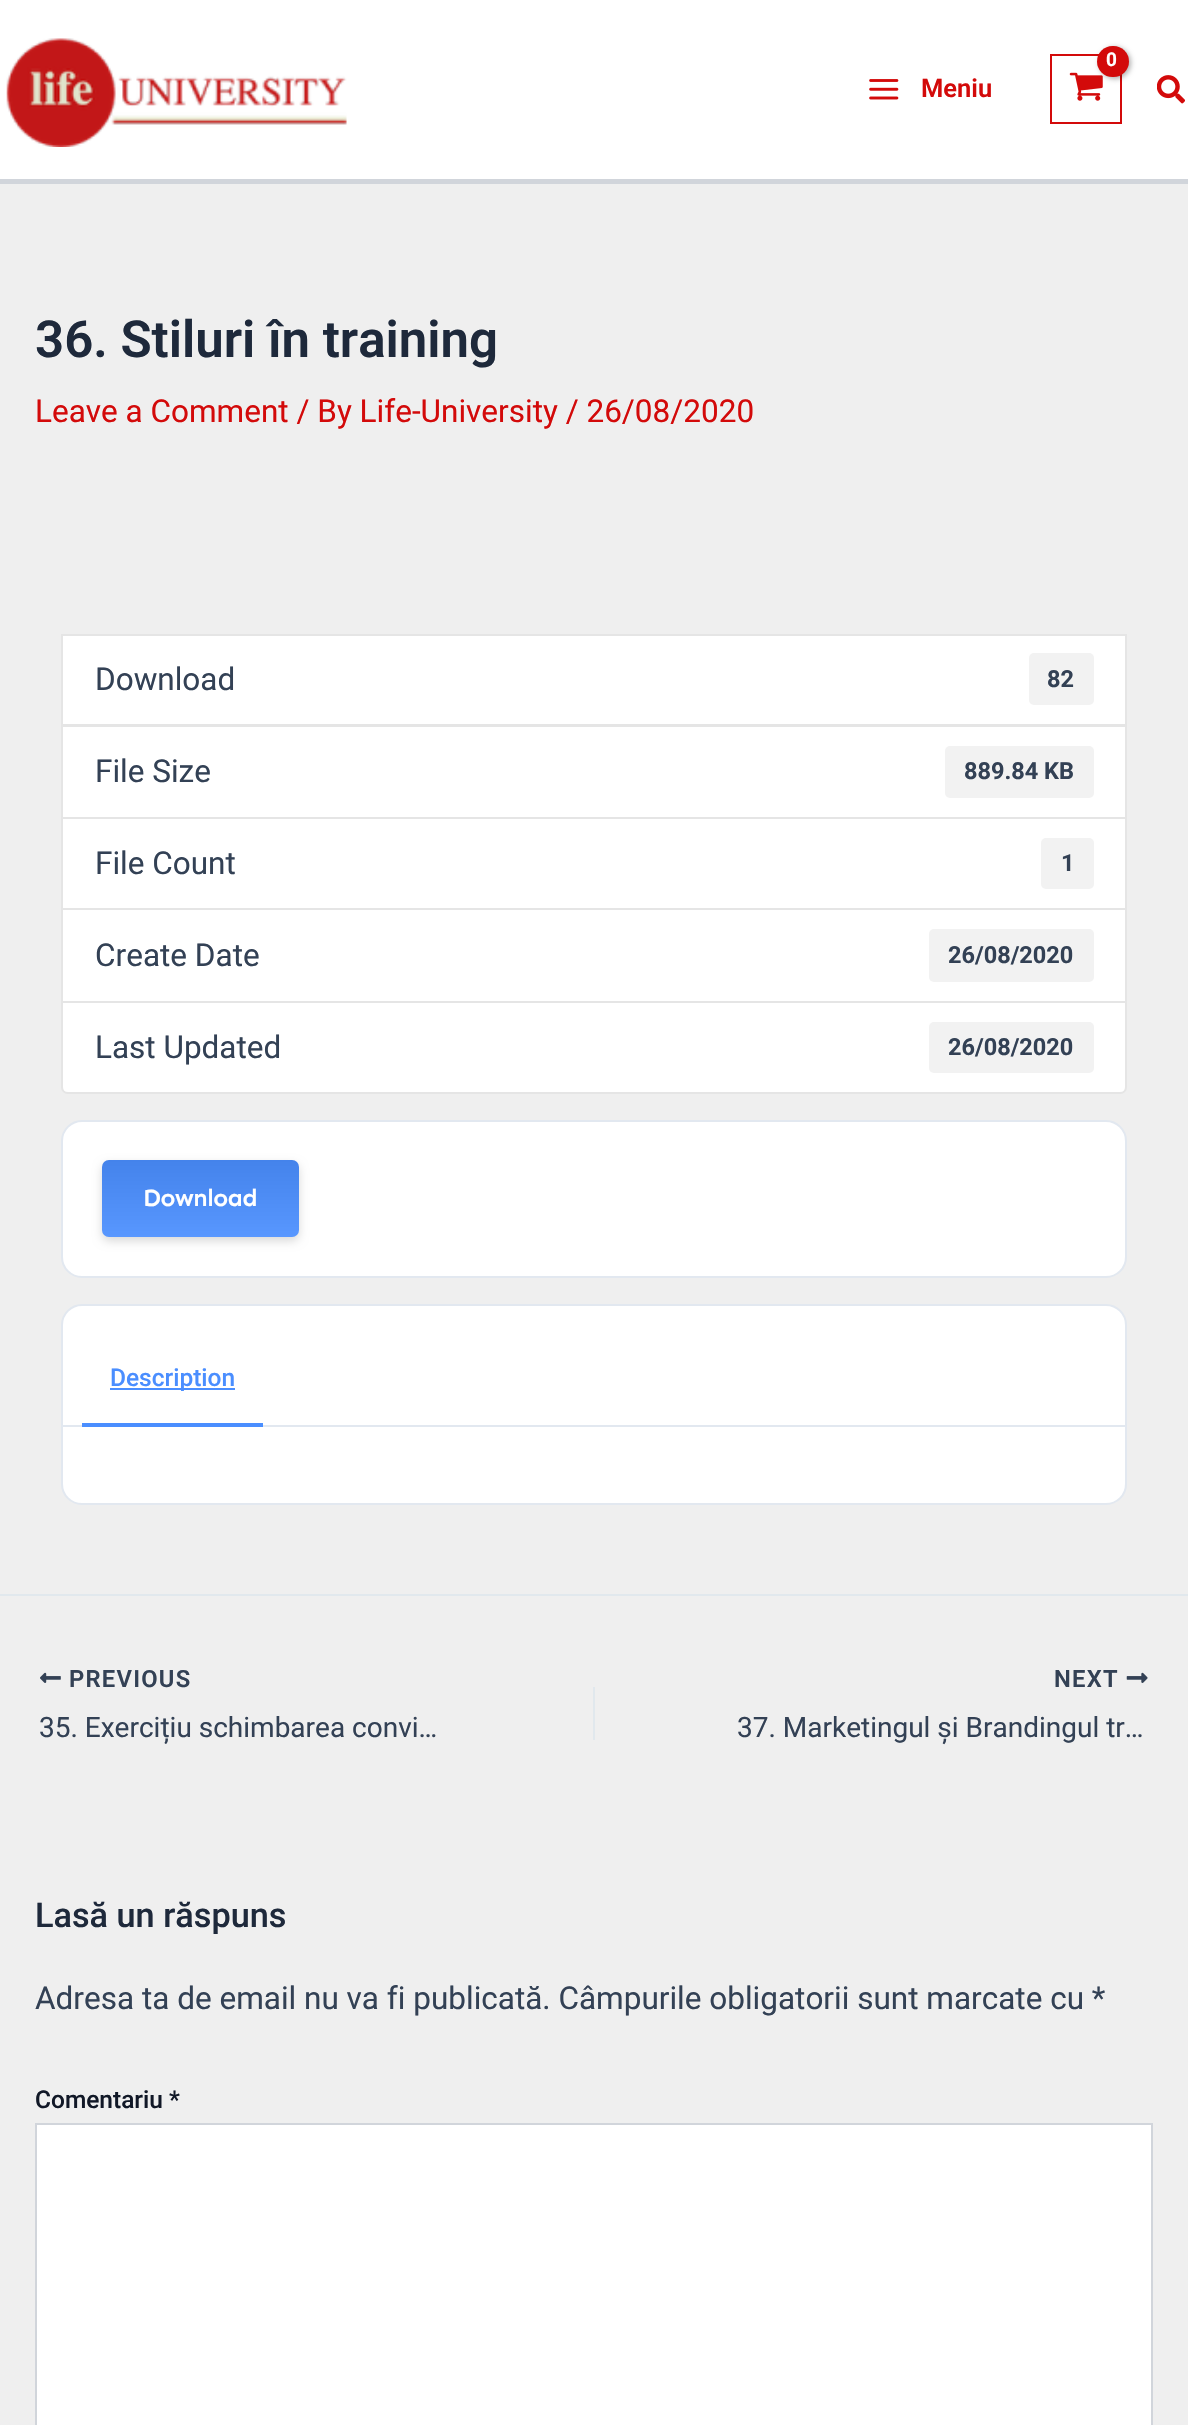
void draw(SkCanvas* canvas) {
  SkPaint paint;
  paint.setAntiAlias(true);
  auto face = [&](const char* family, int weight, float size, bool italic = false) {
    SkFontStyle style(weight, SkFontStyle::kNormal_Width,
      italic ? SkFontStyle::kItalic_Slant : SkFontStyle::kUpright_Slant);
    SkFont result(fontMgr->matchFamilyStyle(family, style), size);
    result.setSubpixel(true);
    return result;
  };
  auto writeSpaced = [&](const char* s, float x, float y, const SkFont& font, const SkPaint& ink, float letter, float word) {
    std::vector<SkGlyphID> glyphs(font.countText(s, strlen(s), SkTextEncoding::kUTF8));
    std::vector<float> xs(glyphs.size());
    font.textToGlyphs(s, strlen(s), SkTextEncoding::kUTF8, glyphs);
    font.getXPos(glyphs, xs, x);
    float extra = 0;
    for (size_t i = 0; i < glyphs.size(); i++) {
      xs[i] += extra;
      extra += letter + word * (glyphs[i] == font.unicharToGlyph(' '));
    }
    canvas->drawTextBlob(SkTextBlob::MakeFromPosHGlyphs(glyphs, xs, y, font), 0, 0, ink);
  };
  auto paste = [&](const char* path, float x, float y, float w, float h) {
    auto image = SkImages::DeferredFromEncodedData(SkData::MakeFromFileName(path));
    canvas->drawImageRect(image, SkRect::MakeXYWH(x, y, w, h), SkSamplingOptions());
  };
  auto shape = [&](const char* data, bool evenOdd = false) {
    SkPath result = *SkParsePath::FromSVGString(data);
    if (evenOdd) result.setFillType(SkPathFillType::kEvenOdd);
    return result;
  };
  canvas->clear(0xffefefef);
  paint.setColor(0xffffffff);
  canvas->drawRect(SkRect::MakeXYWH(0, 0, 1188, 179), paint);
  paint.setColor(0xffd1d5db);
  canvas->drawRect(SkRect::MakeXYWH(0, 179, 1188, 5), paint);
  paste("img/1.png", 6, 38, 341, 109);
  paint.setStroke(true);
  paint.setStrokeWidth(2);
  paint.setColor(0xffd30a0a);
  canvas->drawRect(SkRect::MakeXYWH(1051, 55, 70, 68), paint);
  paste("img/2.png", 1069, 72, 34, 29);
  paint.setStroke(false);
  paint.setColor(0x4d000000);
  paint.setMaskFilter(SkMaskFilter::MakeBlur(kNormal_SkBlurStyle, 2.5f));
  canvas->drawRoundRect(SkRect::MakeXYWH(1099, 47, 32, 32), 16, 16, paint);
  paint.setMaskFilter(nullptr);
  paint.setColor(0xffd30a0a);
  canvas->drawRoundRect(SkRect::MakeXYWH(1097, 46, 32, 31), 15.5f, 15.5f, paint);
  paste("img/3.png", 869, 79, 30, 21);
  paste("img/4.png", 1157, 75, 28, 29);
  paint.setColor(0xffffffff);
  canvas->drawRect(SkRect::MakeXYWH(62, 635, 1064, 90), paint);
  paint.setStroke(true);
  paint.setColor(0xffe5e5e5);
  canvas->drawRect(SkRect::MakeXYWH(62, 635, 1064, 90), paint);
  paint.setStroke(false);
  paint.setColor(0xfff2f2f2);
  canvas->drawRoundRect(SkRect::MakeXYWH(1029, 653, 65, 52), 5, 5, paint);
  paint.setColor(0xffffffff);
  canvas->drawRect(SkRect::MakeXYWH(62, 726, 1064, 92), paint);
  paint.setStroke(true);
  paint.setColor(0xffe5e5e5);
  canvas->drawRect(SkRect::MakeXYWH(62, 726, 1064, 92), paint);
  paint.setStroke(false);
  paint.setColor(0xfff2f2f2);
  canvas->drawRoundRect(SkRect::MakeXYWH(945, 746, 149, 52), 5, 5, paint);
  paint.setColor(0xffffffff);
  canvas->drawRect(SkRect::MakeXYWH(62, 818, 1064, 91), paint);
  paint.setStroke(true);
  paint.setColor(0xffe5e5e5);
  canvas->drawRect(SkRect::MakeXYWH(62, 818, 1064, 91), paint);
  paint.setStroke(false);
  paint.setColor(0xfff2f2f2);
  canvas->drawRoundRect(SkRect::MakeXYWH(1041, 838, 53, 51), 5, 5, paint);
  paint.setColor(0xffffffff);
  canvas->drawRect(SkRect::MakeXYWH(62, 909, 1064, 93), paint);
  paint.setStroke(true);
  paint.setColor(0xffe5e5e5);
  canvas->drawRect(SkRect::MakeXYWH(62, 909, 1064, 93), paint);
  paint.setStroke(false);
  paint.setColor(0xfff2f2f2);
  canvas->drawRoundRect(SkRect::MakeXYWH(929, 929, 165, 53), 5, 5, paint);
  paint.setColor(0xffffffff);
  canvas->drawPath(shape("M62 1002H1126V1087C1126 1090.5 1123.5 1093 1120 1093H68C64.5 1093 62 1090.5 62 1087Z"), paint);
  paint.setStroke(true);
  paint.setColor(0xffe5e5e5);
  canvas->drawPath(shape("M62 1002H1126V1087C1126 1090.5 1123.5 1093 1120 1093H68C64.5 1093 62 1090.5 62 1087Z"), paint);
  paint.setStroke(false);
  paint.setColor(0xfff2f2f2);
  canvas->drawRoundRect(SkRect::MakeXYWH(929, 1022, 165, 51), 5, 5, paint);
  paint.setColor(0xffffffff);
  canvas->drawRoundRect(SkRect::MakeXYWH(62, 1121, 1064, 156), 20, 20, paint);
  paint.setStroke(true);
  paint.setColor(0xffe2e8f0);
  canvas->drawRoundRect(SkRect::MakeXYWH(62, 1121, 1064, 156), 20, 20, paint);
  paint.setStroke(false);
  paint.setColor(0x26000000);
  paint.setMaskFilter(SkMaskFilter::MakeBlur(kNormal_SkBlurStyle, 5));
  canvas->drawRoundRect(SkRect::MakeXYWH(102, 1164, 197, 77), 7, 7, paint);
  paint.setMaskFilter(nullptr);
  paint.setColor(0xff4a8eff);
  canvas->drawRoundRect(SkRect::MakeXYWH(102, 1160, 197, 77), 7, 7, paint);
  {
    const SkColor colors[] = {0x14000000, 0x14ffffff};
    const float stops[] = {0, 1};
    const SkPoint ends[] = {{200, 1160}, {200, 1237}};
    paint.setShader(SkGradientShader::MakeLinear(ends, colors, stops, 2, SkTileMode::kClamp));
    paint.setAlpha(255);
  }
  canvas->drawRoundRect(SkRect::MakeXYWH(102, 1160, 197, 77), 7, 7, paint);
  paint.setShader(nullptr);
  paint.setColor(0xffffffff);
  canvas->drawRoundRect(SkRect::MakeXYWH(62, 1305, 1064, 199), 20, 20, paint);
  paint.setStroke(true);
  paint.setColor(0xffe2e8f0);
  canvas->drawRoundRect(SkRect::MakeXYWH(62, 1305, 1064, 199), 20, 20, paint);
  paint.setStroke(false);
  {
    const struct { float x, y, w, h; SkColor color; } items[] = {
      {63, 1425, 1062, 2, 0xffe2e8f0},
      {110, 1388, 125, 2, 0xff4a8eff},
      {82, 1423, 181, 4, 0xff4a8eff},
      {0, 1594, 1188, 2, 0xffe1e8ed},
    };
    for (auto [x, y, w, h, color] : items) {
      paint.setColor(color);
      canvas->drawRect(SkRect::MakeXYWH(x, y, w, h), paint);
    }
  }
  paste("img/5.png", 40, 1672, 21, 11);
  canvas->drawRect(SkRect::MakeXYWH(593, 1687, 2, 53), paint);
  paste("img/6.png", 1126, 1672, 22, 11);
  paint.setColor(0xffffffff);
  canvas->drawRect(SkRect::MakeXYWH(36, 2124, 1116, 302), paint);
  paint.setStroke(true);
  paint.setColor(0xffd1d5db);
  canvas->drawRect(SkRect::MakeXYWH(36, 2124, 1116, 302), paint);
  auto f0 = face("Roboto", 700, 19);
  paint.setStroke(false);
  paint.setColor(0xffffffff);
  writeSpaced("0", 1106, 66, f0, paint, -1, 0);
  auto f1 = face("Roboto", 600, 25.5f);
  paint.setColor(0xffd30a0a);
  canvas->drawString("Meniu", 921, 97, f1, paint);
  auto f2 = face("Roboto", 600, 51);
  paint.setColor(0xff1e293b);
  canvas->drawString("36. Stiluri în training", 35, 357, f2, paint);
  auto f3 = face("Roboto", 400, 31.5f);
  paint.setColor(0xffd30a0a);
  canvas->drawString("Leave a Comment / By Life-University / 26/08/2020", 35, 422, f3, paint);
  paint.setColor(0xff334155);
  canvas->drawString("Download", 95, 690, f3, paint);
  auto f4 = face("Roboto", 700, 23.5f);
  canvas->drawString("82", 1047, 687, f4, paint);
  canvas->drawString("File Size", 95, 782, f3, paint);
  canvas->drawString("889.84 KB", 964, 779, f4, paint);
  canvas->drawString("File Count", 95, 874, f3, paint);
  canvas->drawString("1", 1061, 871, f4, paint);
  canvas->drawString("Create Date", 95, 966, f3, paint);
  canvas->drawString("26/08/2020", 948, 963, f4, paint);
  canvas->drawString("Last Updated", 95, 1058, f3, paint);
  canvas->drawString("26/08/2020", 948, 1055, f4, paint);
  auto f5 = face("Sen", 600, 24.5f);
  paint.setColor(0xffffffff);
  writeSpaced("Download", 143, 1206, f5, paint, -0.5f, 0);
  auto f6 = face("Roboto", 500, 24.5f);
  paint.setColor(0xff4a8eff);
  canvas->drawString("Description", 110, 1386, f6, paint);
  auto f7 = face("Roboto", 600, 23.75f);
  paint.setColor(0xff334155);
  writeSpaced("PREVIOUS", 69, 1687, f7, paint, 1.25f, 0);
  auto f8 = face("Roboto", 400, 28);
  canvas->drawString("35. Exercițiu schimbarea convi…", 39, 1737, f8, paint);
  writeSpaced("NEXT", 1054, 1687, f7, paint, 1.25f, 0);
  canvas->drawString("37. Marketingul și Brandingul tr…", 737, 1737, f8, paint);
  auto f9 = face("Roboto", 500, 34.25f);
  paint.setColor(0xff1e293b);
  canvas->drawString("Lasă un răspuns", 35, 1927, f9, paint);
  paint.setColor(0xff334155);
  canvas->drawString("Adresa ta de email nu va fi publicată. Câmpurile obligatorii sunt marcate cu *", 35, 2009, f3, paint);
  paint.setColor(0xff111827);
  canvas->drawString("Comentariu *", 35, 2108, f6, paint);
}
